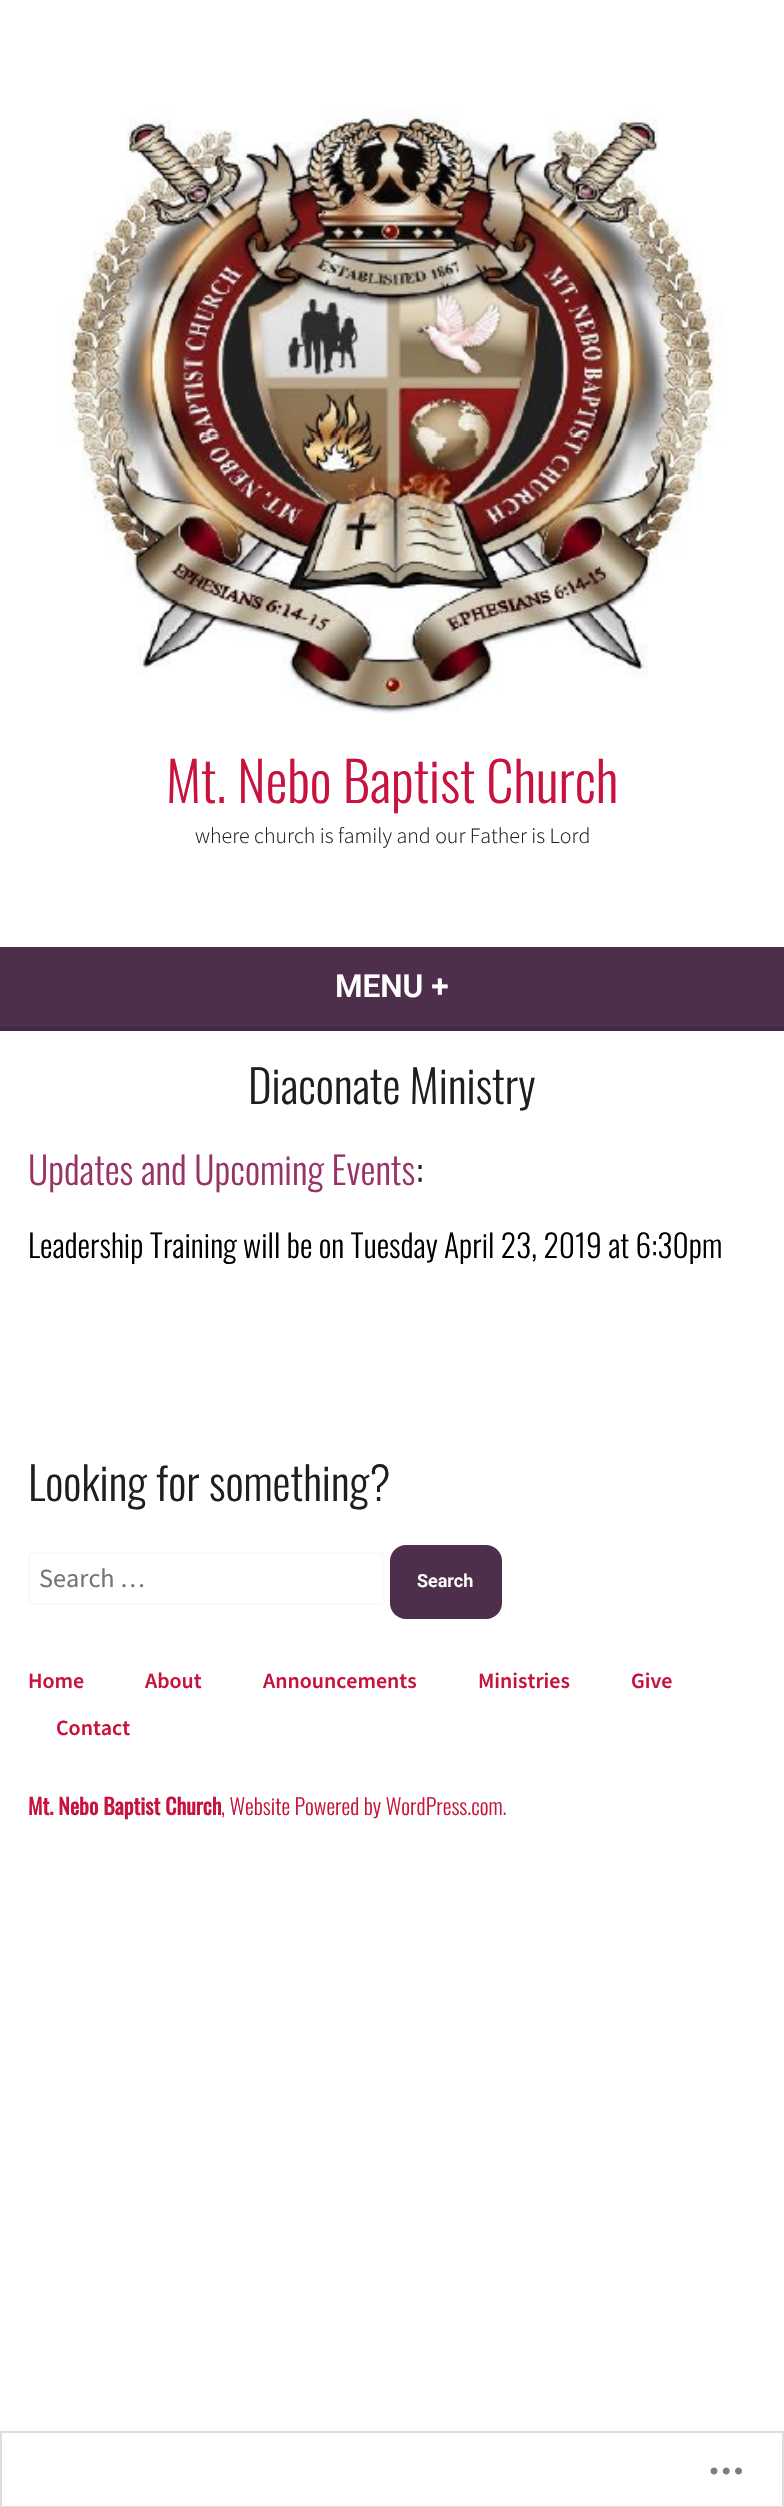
void draw(SkCanvas* canvas) {
  SkPaint paint;
  paint.setAntiAlias(true);
  auto face = [&](const char* family, int weight, float size, bool italic = false) {
    SkFontStyle style(weight, SkFontStyle::kNormal_Width,
      italic ? SkFontStyle::kItalic_Slant : SkFontStyle::kUpright_Slant);
    SkFont result(fontMgr->matchFamilyStyle(family, style), size);
    result.setSubpixel(true);
    return result;
  };
  auto paste = [&](const char* path, float x, float y, float w, float h) {
    auto image = SkImages::DeferredFromEncodedData(SkData::MakeFromFileName(path));
    canvas->drawImageRect(image, SkRect::MakeXYWH(x, y, w, h), SkSamplingOptions());
  };
  canvas->clear(0xffffffff);
  paste("img/1.png", 60, 108, 664, 606);
  paint.setColor(0xff4e2f4b);
  canvas->drawRect(SkRect::MakeXYWH(0, 947, 784, 80), paint);
  paint.setColor(0xff422840);
  canvas->drawRect(SkRect::MakeXYWH(0, 1027, 784, 4), paint);
  paint.setStroke(true);
  paint.setStrokeWidth(2);
  paint.setColor(0xfff9f9f9);
  canvas->drawRoundRect(SkRect::MakeXYWH(29, 1553, 355, 51), 4, 4, paint);
  paint.setStroke(false);
  paint.setColor(0xff4e2f4b);
  canvas->drawRoundRect(SkRect::MakeXYWH(390, 1545, 112, 74), 16, 16, paint);
  paint.setStroke(true);
  paint.setColor(0xffdddddf);
  canvas->drawRect(SkRect::MakeXYWH(1, 2432, 782, 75), paint);
  paste("img/2.png", 710, 2467, 32, 8);
  auto f0 = face("Oswald", 300, 54.5f);
  paint.setStroke(false);
  paint.setColor(0xffc8133e);
  canvas->drawString("Mt. Nebo Baptist Church", 166, 803, f0, paint);
  auto f1 = face("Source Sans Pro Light", 300, 21.9f);
  paint.setColor(0xff1d1e1e);
  canvas->drawString("where church is family and our Father is Lord", 195, 843, f1, paint);
  auto f2 = face("Roboto", 600, 31.5f);
  paint.setColor(0xffffffff);
  canvas->drawString("MENU +", 335, 997, f2, paint);
  auto f3 = face("Oswald", 300, 45.25f);
  paint.setColor(0xff1d1e1e);
  canvas->drawString("Diaconate Ministry", 248, 1104, f3, paint);
  auto f4 = face("Oswald", 300, 37.75f);
  paint.setColor(0xff993366);
  canvas->drawString("Updates and Upcoming Events", 28, 1185, f4, paint);
  paint.setColor(0xff1d1e1e);
  canvas->drawString(":", 416, 1185, f4, paint);
  auto f5 = face("Oswald", 300, 31.5f);
  paint.setColor(0xff000000);
  canvas->drawString("Leadership Training will be on Tuesday April 23, 2019 at 6:30pm", 28, 1258, f5, paint);
  paint.setColor(0xff1d1e1e);
  canvas->drawString("Looking for something?", 28, 1501, f3, paint);
  auto f6 = face("Source Sans Pro", 400, 26.25f);
  paint.setColor(0xff757575);
  canvas->drawString("Search …", 39, 1587, f6, paint);
  auto f7 = face("Roboto", 600, 18);
  paint.setColor(0xffffffff);
  canvas->drawString("Search", 417, 1587, f7, paint);
  auto f8 = face("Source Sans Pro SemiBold", 600, 21.9f);
  paint.setColor(0xffc8133e);
  {
    const struct { const char* s; float x, y; } items[] = {
      {"Home", 28, 1688},
      {"About", 145, 1688},
      {"Announcements", 263, 1688},
      {"Ministries", 478, 1688},
      {"Give", 631, 1688},
      {"Contact", 56, 1735},
    };
    for (auto [s, x, y] : items) {
      canvas->drawString(s, x, y, f8, paint);
    }
  }
  auto f9 = face("Oswald", 700, 21.9f);
  canvas->drawString("Mt. Nebo Baptist Church", 28, 1815, f9, paint);
  auto f10 = face("Oswald", 300, 21.9f);
  canvas->drawString(", Website Powered by WordPress.com.", 221, 1815, f10, paint);
}
